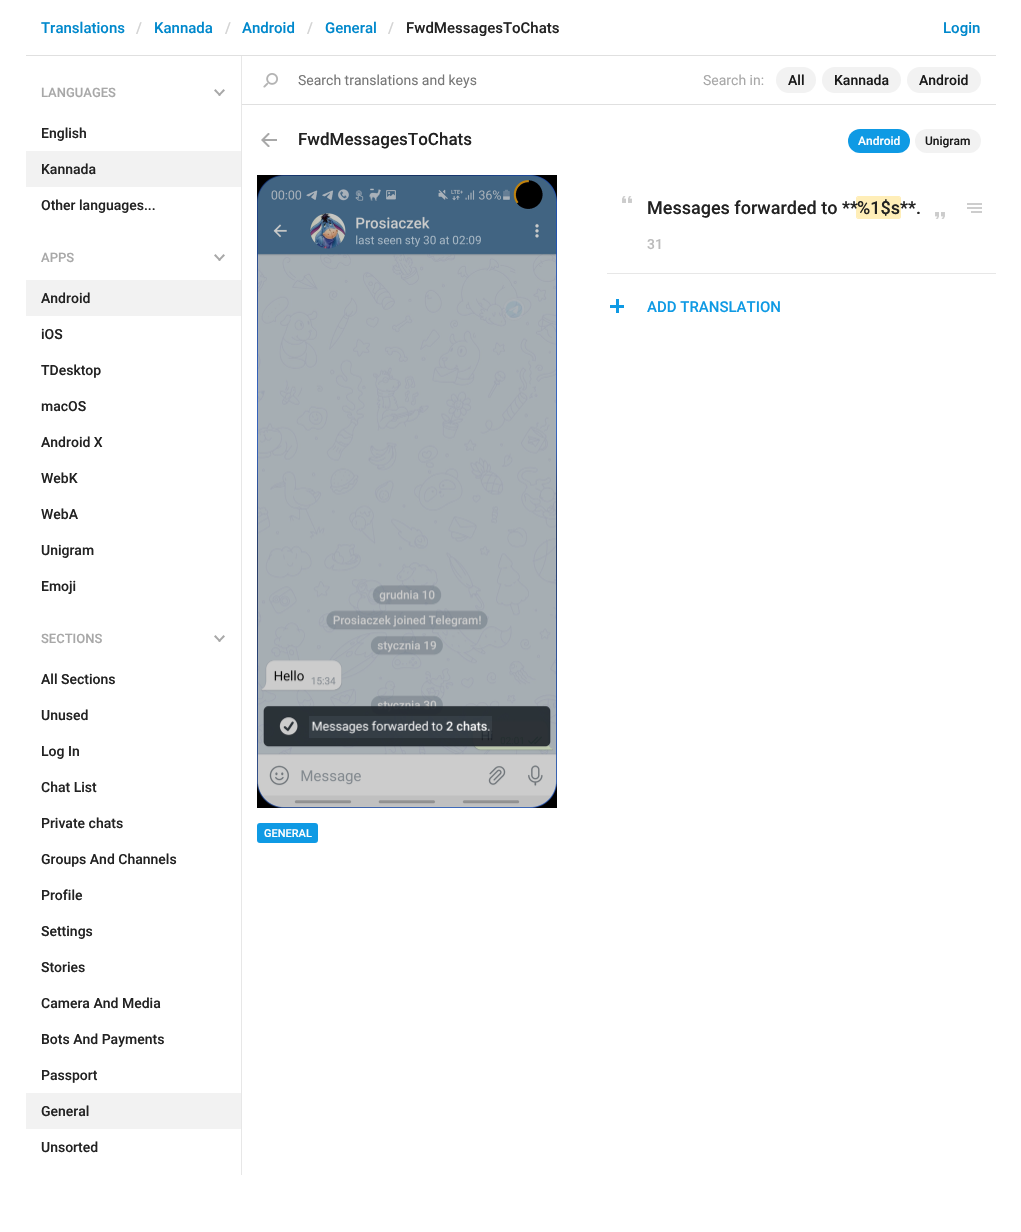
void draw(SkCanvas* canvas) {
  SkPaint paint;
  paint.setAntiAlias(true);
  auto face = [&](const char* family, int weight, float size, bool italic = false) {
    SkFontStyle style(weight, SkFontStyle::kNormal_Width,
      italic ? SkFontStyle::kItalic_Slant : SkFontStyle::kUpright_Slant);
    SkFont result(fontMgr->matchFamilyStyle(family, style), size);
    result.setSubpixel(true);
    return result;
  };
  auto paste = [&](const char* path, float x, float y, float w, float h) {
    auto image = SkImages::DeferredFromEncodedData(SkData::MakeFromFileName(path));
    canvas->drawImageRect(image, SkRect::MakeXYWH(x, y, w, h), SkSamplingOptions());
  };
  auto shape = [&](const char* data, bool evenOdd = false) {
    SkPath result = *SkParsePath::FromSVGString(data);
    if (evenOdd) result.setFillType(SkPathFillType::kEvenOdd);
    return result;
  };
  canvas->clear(0xffffffff);
  paint.setColor(0xffe0e0e0);
  canvas->drawRect(SkRect::MakeXYWH(26, 55, 970, 1), paint);
  canvas->drawRect(SkRect::MakeXYWH(242, 104, 754, 1), paint);
  paste("img/1.png", 263, 73, 15, 15);
  paint.setColor(0xfff2f2f2);
  canvas->drawRoundRect(SkRect::MakeXYWH(776, 67, 40, 26), 13, 13, paint);
  canvas->drawRoundRect(SkRect::MakeXYWH(822, 67, 79, 26), 13, 13, paint);
  canvas->drawRoundRect(SkRect::MakeXYWH(907, 67, 74, 26), 13, 13, paint);
  paint.setColor(0xffa8a8a8);
  canvas->drawPath(shape("M219.5 96L214 90.5L215.5 89L221 95Z"), paint);
  canvas->drawPath(shape("M219.5 96L218 95L223.5 89L225 90.5Z"), paint);
  paint.setColor(0xfff2f2f2);
  canvas->drawRect(SkRect::MakeXYWH(26, 151, 215, 36), paint);
  paint.setColor(0xffa8a8a8);
  canvas->drawPath(shape("M219.5 261L214 255.5L215.5 254L221 260Z"), paint);
  canvas->drawPath(shape("M219.5 261L218 260L223.5 254L225 255.5Z"), paint);
  paint.setColor(0xfff2f2f2);
  canvas->drawRect(SkRect::MakeXYWH(26, 280, 215, 36), paint);
  paint.setColor(0xffa8a8a8);
  canvas->drawPath(shape("M219.5 642L214 636.5L215.5 635L221 641Z"), paint);
  canvas->drawPath(shape("M219.5 642L218 641L223.5 635L225 636.5Z"), paint);
  paint.setColor(0xfff2f2f2);
  canvas->drawRect(SkRect::MakeXYWH(26, 1093, 215, 36), paint);
  paint.setColor(0xffe7e7e7);
  canvas->drawRect(SkRect::MakeXYWH(241, 56, 1, 1119), paint);
  paste("img/2.png", 261, 133, 16, 14);
  paint.setColor(0xff0f9ae4);
  canvas->drawRoundRect(SkRect::MakeXYWH(848, 129, 62, 24), 12, 12, paint);
  paint.setColor(0xfff2f2f2);
  canvas->drawRoundRect(SkRect::MakeXYWH(915, 129, 66, 24), 12, 12, paint);
  paste("img/3.png", 622, 196, 10, 7);
  paint.setStroke(true);
  paint.setStrokeWidth(1);
  paint.setColor(0xffffeeb8);
  canvas->drawRoundRect(SkRect::MakeXYWH(856.5f, 196.5f, 44, 22), 1.5f, 1.5f, paint);
  paint.setStroke(false);
  canvas->drawRoundRect(SkRect::MakeXYWH(857, 197, 43, 21), 1, 1, paint);
  paste("img/4.png", 935, 212, 10, 7);
  paste("img/5.png", 967, 203, 15, 10);
  {
    const struct { float x, y, w, h; SkColor color; } items[] = {
      {607, 273, 389, 1, 0xffe7e7e7},
      {610, 305, 14, 3, 0xff0f9ae4},
      {616, 299, 3, 14, 0xff0f9ae4},
    };
    for (auto [x, y, w, h, color] : items) {
      paint.setColor(color);
      canvas->drawRect(SkRect::MakeXYWH(x, y, w, h), paint);
    }
  }
  paste("img/6.png", 257, 175, 300, 633);
  paste("img/7.png", 309, 716, 183, 22);
  canvas->drawRoundRect(SkRect::MakeXYWH(257, 823, 61, 20), 3, 3, paint);
  auto f0 = face("Roboto", 500, 15);
  paint.setColor(0xff0088cc);
  canvas->drawString("Translations", 41, 33, f0, paint);
  paint.setColor(0xffd4d4d4);
  canvas->drawString("/", 136, 33, f0, paint);
  paint.setColor(0xff0088cc);
  canvas->drawString("Kannada", 154, 33, f0, paint);
  paint.setColor(0xffd4d4d4);
  canvas->drawString("/", 225, 33, f0, paint);
  paint.setColor(0xff0088cc);
  canvas->drawString("Android", 242, 33, f0, paint);
  paint.setColor(0xffd4d4d4);
  canvas->drawString("/", 307, 33, f0, paint);
  paint.setColor(0xff0088cc);
  canvas->drawString("General", 325, 33, f0, paint);
  paint.setColor(0xffd4d4d4);
  canvas->drawString("/", 388, 33, f0, paint);
  paint.setColor(0xff222222);
  canvas->drawString("FwdMessagesToChats", 406, 33, f0, paint);
  paint.setColor(0xff0088cc);
  canvas->drawString("Login", 943, 33, f0, paint);
  auto f1 = face("Roboto", 400, 14);
  paint.setColor(0xff777777);
  canvas->drawString("Search translations and keys", 298, 85, f1, paint);
  paint.setColor(0xffa8a8a8);
  canvas->drawString("Search in:", 703, 85, f1, paint);
  auto f2 = face("Roboto", 500, 14);
  paint.setColor(0xff1a1a1a);
  {
    const struct { const char* s; float x, y; } items[] = {
      {"All", 788, 85},
      {"Kannada", 834, 85},
      {"Android", 919, 85},
    };
    for (auto [s, x, y] : items) {
      canvas->drawString(s, x, y, f2, paint);
    }
  }
  auto f3 = face("Roboto", 500, 13);
  paint.setColor(0xffa8a8a8);
  canvas->drawString("LANGUAGES", 41, 97, f3, paint);
  paint.setColor(0xff222222);
  {
    const struct { const char* s; float x, y; } items[] = {
      {"English", 41, 138},
      {"Kannada", 41, 174},
      {"Other languages...", 41, 210},
    };
    for (auto [s, x, y] : items) {
      canvas->drawString(s, x, y, f2, paint);
    }
  }
  paint.setColor(0xffa8a8a8);
  canvas->drawString("APPS", 41, 262, f3, paint);
  paint.setColor(0xff222222);
  {
    const struct { const char* s; float x, y; } items[] = {
      {"Android", 41, 303},
      {"iOS", 41, 339},
      {"TDesktop", 41, 375},
      {"macOS", 41, 411},
      {"Android X", 41, 447},
      {"WebK", 41, 483},
      {"WebA", 41, 519},
      {"Unigram", 41, 555},
      {"Emoji", 41, 591},
    };
    for (auto [s, x, y] : items) {
      canvas->drawString(s, x, y, f2, paint);
    }
  }
  paint.setColor(0xffa8a8a8);
  canvas->drawString("SECTIONS", 41, 643, f3, paint);
  paint.setColor(0xff222222);
  {
    const struct { const char* s; float x, y; } items[] = {
      {"All Sections", 41, 684},
      {"Unused", 41, 720},
      {"Log In", 41, 756},
      {"Chat List", 41, 792},
      {"Private chats", 41, 828},
      {"Groups And Channels", 41, 864},
      {"Profile", 41, 900},
      {"Settings", 41, 936},
      {"Stories", 41, 972},
      {"Camera And Media", 41, 1008},
      {"Bots And Payments", 41, 1044},
      {"Passport", 41, 1080},
      {"General", 41, 1116},
      {"Unsorted", 41, 1152},
    };
    for (auto [s, x, y] : items) {
      canvas->drawString(s, x, y, f2, paint);
    }
  }
  auto f4 = face("Roboto", 500, 17);
  canvas->drawString("FwdMessagesToChats", 298, 145, f4, paint);
  auto f5 = face("Roboto", 500, 12);
  paint.setColor(0xffffffff);
  canvas->drawString("Android", 858, 145, f5, paint);
  paint.setColor(0xff1a1a1a);
  canvas->drawString("Unigram", 925, 145, f5, paint);
  auto f6 = face("Roboto", 500, 18);
  paint.setColor(0xff222222);
  canvas->drawString("Messages forwarded to **", 647, 214, f6, paint);
  canvas->drawString("%1$s**.", 857, 214, f6, paint);
  paint.setColor(0xffbbbbbb);
  canvas->drawString("31", 647, 249, f2, paint);
  paint.setColor(0xff0f9ae4);
  canvas->drawString("ADD TRANSLATION", 647, 312, f0, paint);
  auto f7 = face("Roboto", 500, 11);
  paint.setColor(0xffffffff);
  canvas->drawString("GENERAL", 264, 837, f7, paint);
}
